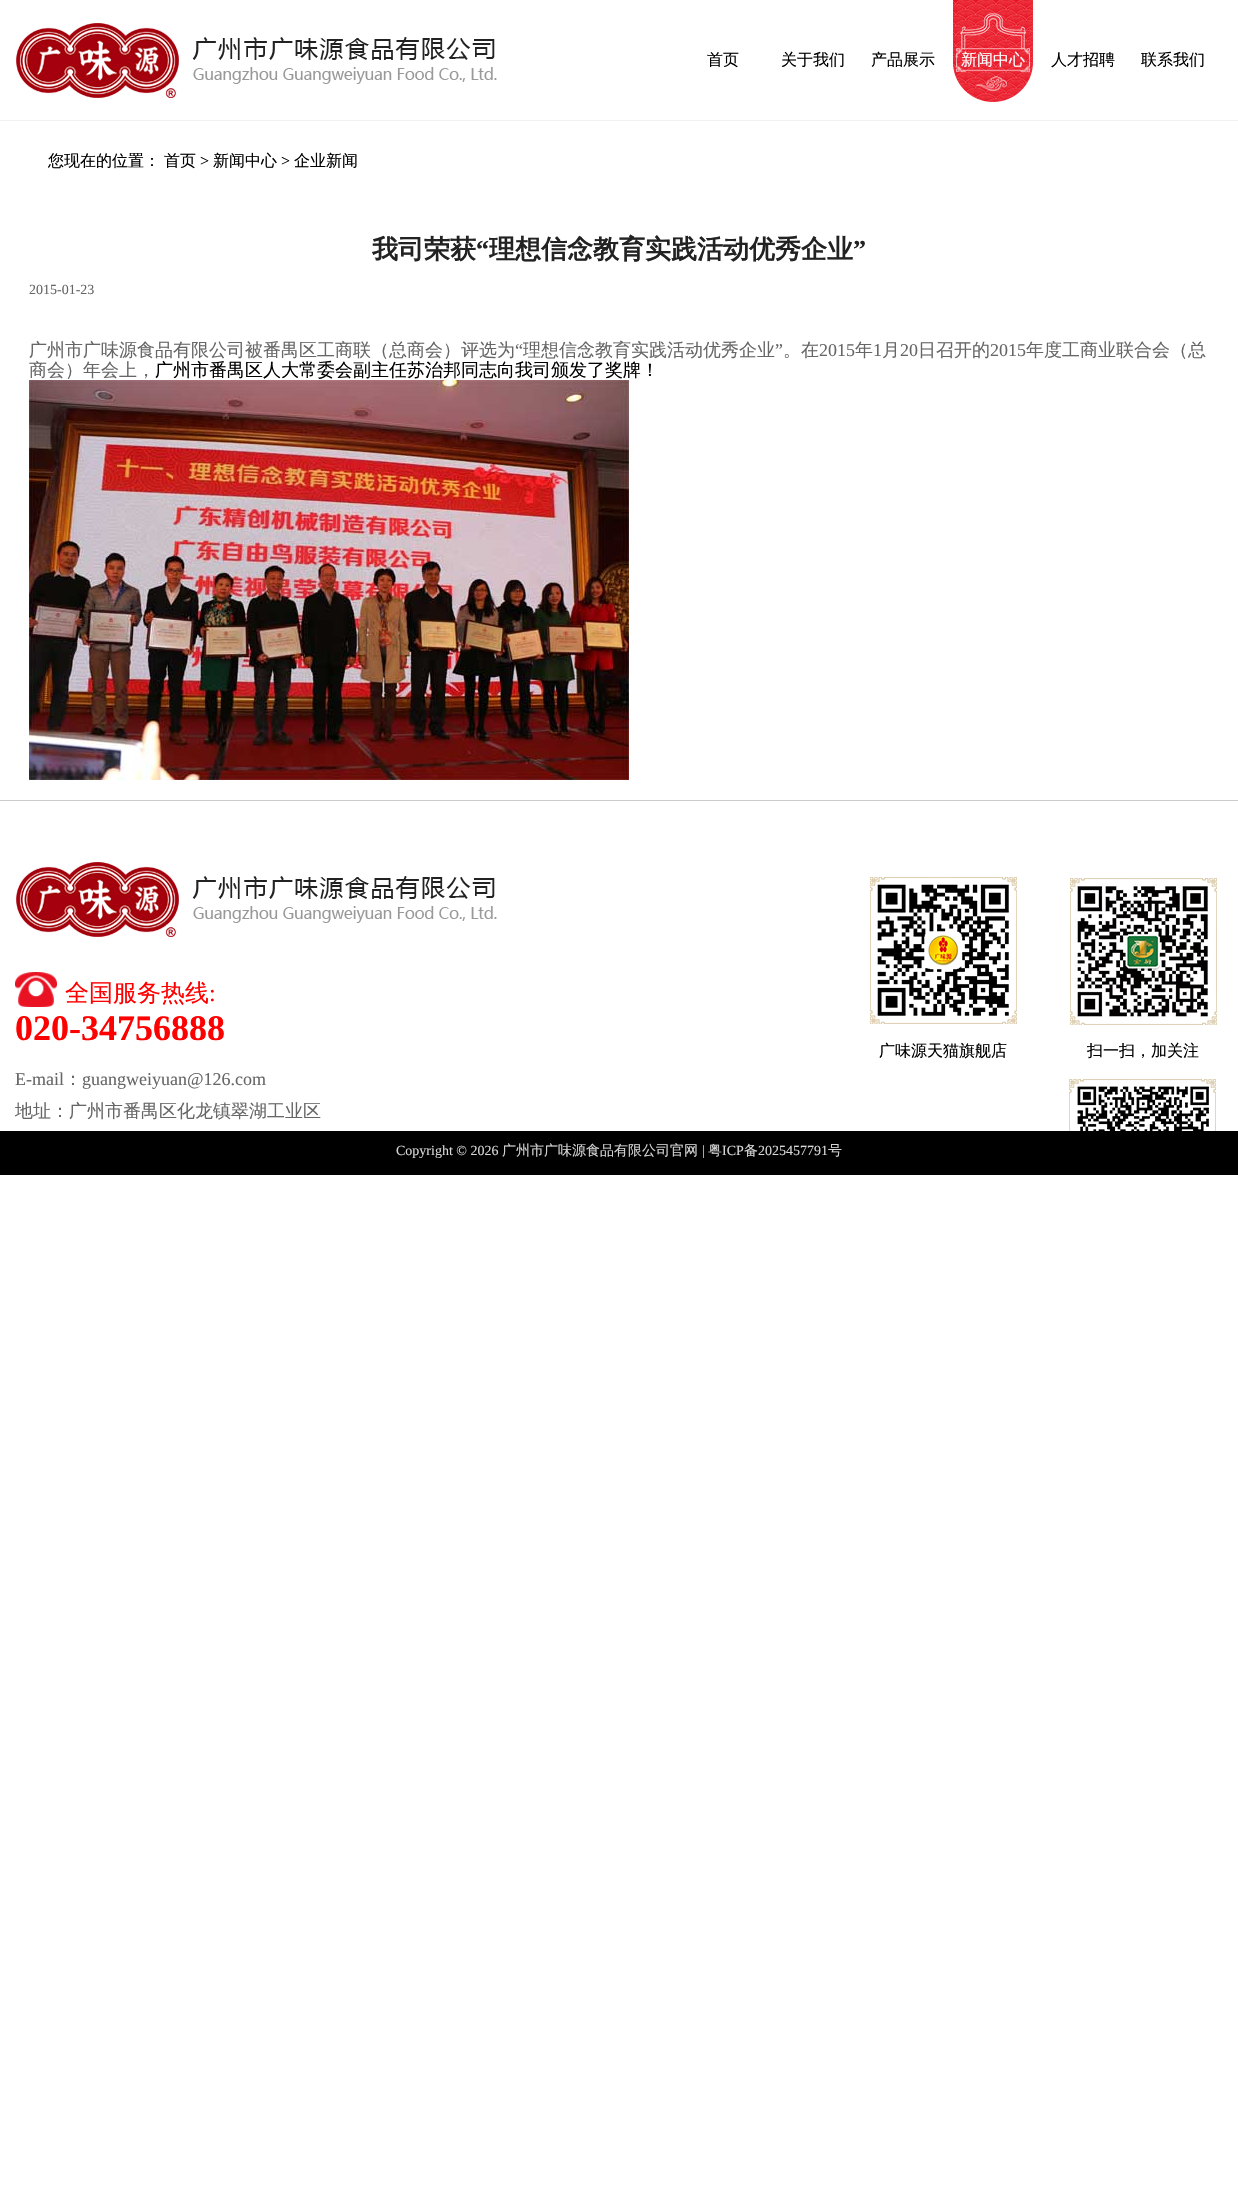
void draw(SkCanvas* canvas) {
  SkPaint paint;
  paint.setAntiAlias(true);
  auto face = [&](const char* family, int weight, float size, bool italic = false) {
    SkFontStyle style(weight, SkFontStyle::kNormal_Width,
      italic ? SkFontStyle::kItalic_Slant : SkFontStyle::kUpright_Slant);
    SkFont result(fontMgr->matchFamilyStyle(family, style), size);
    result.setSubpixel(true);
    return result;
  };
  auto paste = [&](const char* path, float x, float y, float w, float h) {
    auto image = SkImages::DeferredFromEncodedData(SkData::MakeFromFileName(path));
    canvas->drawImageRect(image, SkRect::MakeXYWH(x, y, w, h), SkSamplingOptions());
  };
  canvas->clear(0xffffffff);
  paste("img/1.png", 16, 23, 481, 75);
  paste("img/2.png", 953, 0, 80, 102);
  paint.setColor(0xfff1f1f1);
  canvas->drawRect(SkRect::MakeXYWH(0, 120, 1238, 1), paint);
  paste("img/3.png", 29, 380, 600, 400);
  paint.setColor(0xffccccce);
  canvas->drawRect(SkRect::MakeXYWH(0, 800, 1238, 1), paint);
  paste("img/1.png", 16, 862, 481, 75);
  paste("img/4.png", 15, 972, 42, 35);
  paste("img/5.png", 870, 877, 147, 147);
  paste("img/6.png", 1070, 878, 147, 147);
  paste("img/7.png", 1069, 1079, 147, 52);
  paint.setColor(0xff000000);
  canvas->drawRect(SkRect::MakeXYWH(0, 1131, 1238, 44), paint);
  auto f0 = face("WenQuanYi Zen Hei", 500, 16);
  {
    const struct { const char* s; float x, y; } items[] = {
      {"首页", 707, 65},
      {"关于我们", 781, 65},
      {"产品展示", 871, 65},
    };
    for (auto [s, x, y] : items) {
      canvas->drawString(s, x, y, f0, paint);
    }
  }
  paint.setColor(0xffffffff);
  canvas->drawString("新闻中心", 961, 65, f0, paint);
  paint.setColor(0xff000000);
  {
    const struct { const char* s; float x, y; } items[] = {
      {"人才招聘", 1051, 65},
      {"联系我们", 1141, 65},
      {"您现在的位置：", 48, 166},
      {"首页", 164, 166},
    };
    for (auto [s, x, y] : items) {
      canvas->drawString(s, x, y, f0, paint);
    }
  }
  auto f1 = face("Liberation Serif", 400, 16);
  canvas->drawString(">", 200, 166, f1, paint);
  canvas->drawString("新闻中心", 213, 166, f0, paint);
  canvas->drawString(">", 281, 166, f1, paint);
  canvas->drawString("企业新闻", 294, 166, f0, paint);
  auto f2 = face("WenQuanYi Zen Hei", 700, 26);
  paint.setColor(0xff222222);
  canvas->drawString("我司荣获", 372, 258, f2, paint);
  auto f3 = face("Liberation Serif", 700, 26);
  canvas->drawString("“", 476, 258, f3, paint);
  canvas->drawString("理想信念教育实践活动优秀企业", 489, 258, f2, paint);
  canvas->drawString("”", 853, 258, f3, paint);
  auto f4 = face("Liberation Serif", 400, 14);
  paint.setColor(0xff666666);
  canvas->drawString("2015-01-23", 29, 294, f4, paint);
  auto f5 = face("WenQuanYi Zen Hei", 500, 18);
  canvas->drawString("广州市广味源食品有限公司被番禺区工商联（总商会）评选为", 29, 356, f5, paint);
  auto f6 = face("Liberation Serif", 400, 18);
  canvas->drawString("“", 515, 356, f6, paint);
  canvas->drawString("理想信念教育实践活动优秀企业", 523, 356, f5, paint);
  canvas->drawString("”", 775, 356, f6, paint);
  canvas->drawString("。在", 783, 356, f5, paint);
  canvas->drawString("2015", 819, 356, f6, paint);
  canvas->drawString("年", 855, 356, f5, paint);
  canvas->drawString("1", 873, 356, f6, paint);
  canvas->drawString("月", 882, 356, f5, paint);
  canvas->drawString("20", 900, 356, f6, paint);
  canvas->drawString("日召开的", 918, 356, f5, paint);
  canvas->drawString("2015", 990, 356, f6, paint);
  canvas->drawString("年度工商业联合会（总", 1026, 356, f5, paint);
  canvas->drawString("商会）年会上，", 29, 376, f5, paint);
  paint.setColor(0xff000000);
  canvas->drawString("广州市番禺区人大常委会副主任苏治邦同志向我司颁发了奖牌！", 155, 376, f5, paint);
  auto f7 = face("WenQuanYi Zen Hei", 500, 24);
  paint.setColor(0xffff0000);
  canvas->drawString("全国服务热线", 65, 1001, f7, paint);
  auto f8 = face("Liberation Serif", 400, 24);
  canvas->drawString(":", 209, 1001, f8, paint);
  auto f9 = face("Liberation Serif", 700, 36);
  canvas->drawString("020-34756888", 15, 1040, f9, paint);
  paint.setColor(0xff666666);
  canvas->drawString("E-mail", 15, 1085, f6, paint);
  canvas->drawString("：", 64, 1085, f5, paint);
  canvas->drawString("guangweiyuan@126.com", 82, 1085, f6, paint);
  canvas->drawString("地址：广州市番禺区化龙镇翠湖工业区", 15, 1117, f5, paint);
  paint.setColor(0xff000000);
  canvas->drawString("广味源天猫旗舰店", 879, 1056, f0, paint);
  canvas->drawString("扫一扫，加关注", 1087, 1056, f0, paint);
  paint.setColor(0xffd6d6d6);
  canvas->drawString("Copyright © 2026", 396, 1155, f4, paint);
  auto f10 = face("WenQuanYi Zen Hei", 500, 14);
  canvas->drawString("广州市广味源食品有限公司官网", 502, 1155, f10, paint);
  canvas->drawString("|", 702, 1155, f4, paint);
  canvas->drawString("粤", 708, 1155, f10, paint);
  canvas->drawString("ICP", 722, 1155, f4, paint);
  canvas->drawString("备", 744, 1155, f10, paint);
  canvas->drawString("2025457791", 758, 1155, f4, paint);
  canvas->drawString("号", 828, 1155, f10, paint);
}
